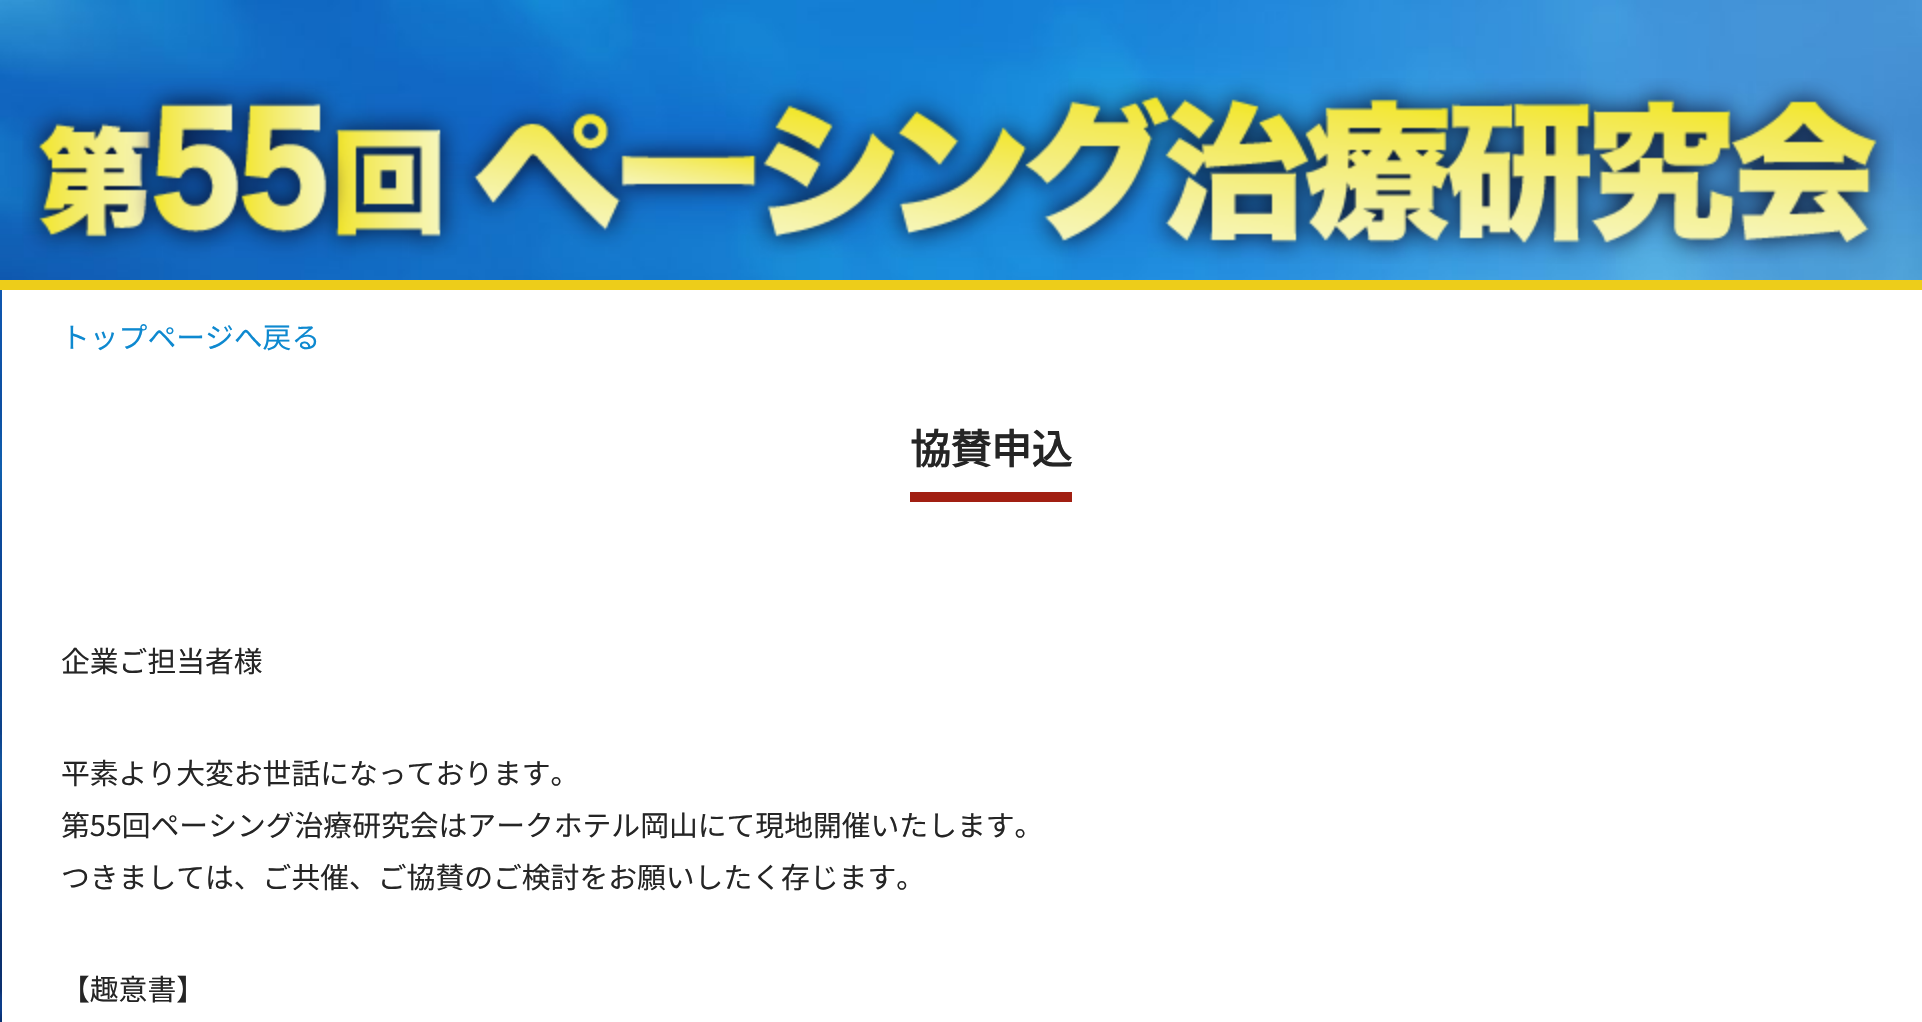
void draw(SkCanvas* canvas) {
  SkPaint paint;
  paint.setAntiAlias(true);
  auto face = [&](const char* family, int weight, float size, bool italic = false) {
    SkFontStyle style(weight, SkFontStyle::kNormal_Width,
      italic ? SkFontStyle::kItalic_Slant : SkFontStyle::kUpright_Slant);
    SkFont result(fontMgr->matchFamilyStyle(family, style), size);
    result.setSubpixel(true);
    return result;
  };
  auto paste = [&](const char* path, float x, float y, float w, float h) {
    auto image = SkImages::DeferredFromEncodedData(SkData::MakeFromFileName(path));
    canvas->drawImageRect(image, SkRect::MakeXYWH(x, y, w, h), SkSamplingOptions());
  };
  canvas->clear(0xffffffff);
  paste("img/1.png", 0, 0, 1922, 1022);
  paint.setColor(0xffedcd1a);
  canvas->drawRect(SkRect::MakeXYWH(0, 280, 1922, 10), paint);
  paste("img/2.png", 22, 78, 1872, 186);
  paint.setColor(0xffffffff);
  canvas->drawRect(SkRect::MakeXYWH(2, 290, 1920, 732), paint);
  paint.setColor(0xffa11f12);
  canvas->drawRect(SkRect::MakeXYWH(910, 492, 162, 10), paint);
  auto f0 = face("Noto Sans JP", 100, 28.8f);
  paint.setColor(0xff0e89d0);
  canvas->drawString("トップページへ戻る", 61, 348, f0, paint);
  auto f1 = face("Noto Sans JP", 700, 40.5f);
  paint.setColor(0xff252525);
  canvas->drawString("協賛申込", 910, 464, f1, paint);
  {
    const struct { const char* s; float x, y; } items[] = {
      {"企業ご担当者様", 61, 672},
      {"平素より大変お世話になっております。", 61, 784},
      {"第55回ペーシング治療研究会はアークホテル岡山にて現地開催いたします。", 61, 836},
      {"つきましては、ご共催、ご協賛のご検討をお願いしたく存じます。", 61, 888},
      {"【趣意書】", 61, 1000},
    };
    for (auto [s, x, y] : items) {
      canvas->drawString(s, x, y, f0, paint);
    }
  }
}
